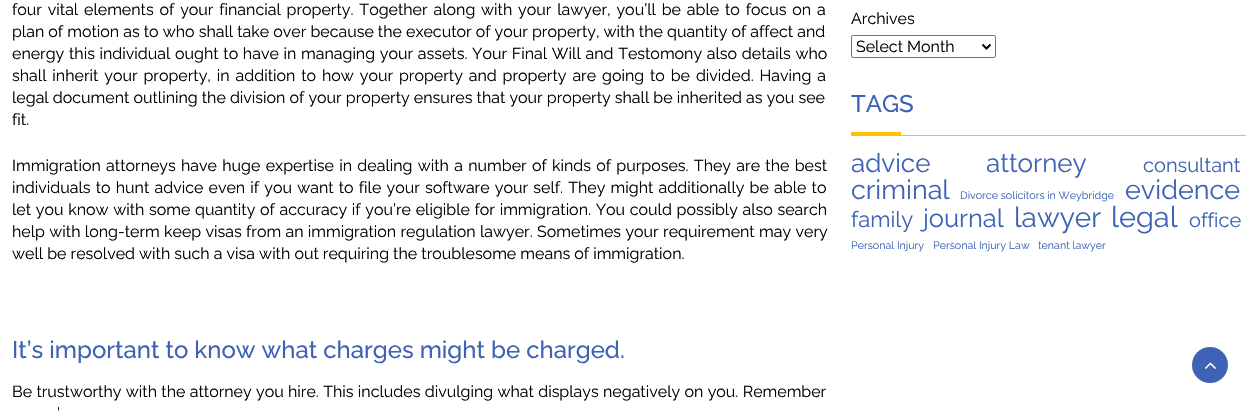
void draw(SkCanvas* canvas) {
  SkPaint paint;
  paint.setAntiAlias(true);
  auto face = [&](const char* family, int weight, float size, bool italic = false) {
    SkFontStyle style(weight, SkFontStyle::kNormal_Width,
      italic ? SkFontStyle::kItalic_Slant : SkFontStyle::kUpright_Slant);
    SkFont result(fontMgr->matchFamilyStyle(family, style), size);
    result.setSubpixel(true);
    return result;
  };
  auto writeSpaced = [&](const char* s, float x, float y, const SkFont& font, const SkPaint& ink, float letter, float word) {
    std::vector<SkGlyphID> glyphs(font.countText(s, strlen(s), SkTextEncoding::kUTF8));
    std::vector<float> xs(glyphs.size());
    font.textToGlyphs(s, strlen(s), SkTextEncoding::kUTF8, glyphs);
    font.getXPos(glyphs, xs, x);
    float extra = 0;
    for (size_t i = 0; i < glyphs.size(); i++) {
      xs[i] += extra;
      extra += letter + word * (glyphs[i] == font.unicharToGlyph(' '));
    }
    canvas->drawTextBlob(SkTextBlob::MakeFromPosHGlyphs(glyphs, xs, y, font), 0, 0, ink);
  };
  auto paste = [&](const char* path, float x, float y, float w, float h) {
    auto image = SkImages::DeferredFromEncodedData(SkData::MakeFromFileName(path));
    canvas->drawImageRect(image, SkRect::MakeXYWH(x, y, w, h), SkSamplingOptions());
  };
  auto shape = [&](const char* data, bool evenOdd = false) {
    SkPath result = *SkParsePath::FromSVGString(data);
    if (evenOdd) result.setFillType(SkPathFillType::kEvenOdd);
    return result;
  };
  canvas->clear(0xffffffff);
  paint.setStroke(true);
  paint.setStrokeWidth(1);
  paint.setColor(0xff767676);
  canvas->drawRoundRect(SkRect::MakeXYWH(851.5f, 35.5f, 144, 22), 1.5f, 1.5f, paint);
  paint.setStrokeWidth(2);
  paint.setColor(0xff000000);
  canvas->drawPath(shape("M982.5 44.5L986.5 48.5L990.5 44.5"), paint);
  paint.setStroke(false);
  paint.setColor(0xffffc000);
  canvas->drawRect(SkRect::MakeXYWH(901, 135, 345, 1), paint);
  canvas->drawRect(SkRect::MakeXYWH(851, 132, 50, 4), paint);
  paint.setColor(0xff3e63b6);
  canvas->drawCircle(1210, 365, 18, paint);
  paste("img/1.png", 1204, 362, 12, 7);
  auto f0 = face("Raleway", 400, 16);
  paint.setColor(0xff000000);
  writeSpaced("four vital elements of your financial property. Together along with your lawyer, you’ll be able to focus on a", 12, 15, f0, paint, 0, 1.75f);
  canvas->drawString("plan of motion as to who shall take over because the executor of your property, with the quantity of affect and", 12, 37, f0, paint);
  writeSpaced("energy this individual ought to have in managing your assets. Your Final Will and Testomony also details who", 12, 59, f0, paint, 0, 0.6f);
  writeSpaced("shall inherit your property, in addition to how your property and property are going to be divided. Having a", 12, 81, f0, paint, 0, 1.8f);
  canvas->drawString("legal document outlining the division of your property ensures that your property shall be inherited as you see", 12, 103, f0, paint);
  canvas->drawString("fit.", 12, 125, f0, paint);
  writeSpaced("Immigration attorneys have huge expertise in dealing with a number of kinds of purposes. They are the best", 12, 171, f0, paint, 0, 1.2f);
  writeSpaced("individuals to hunt advice even if you want to file your software your self. They might additionally be able to", 12, 193, f0, paint, 0, 1.1f);
  writeSpaced("let you know with some quantity of accuracy if you’re eligible for immigration. You could possibly also search", 12, 215, f0, paint, 0, 0.6f);
  writeSpaced("help with long-term keep visas from an immigration regulation lawyer. Sometimes your requirement may very", 12, 237, f0, paint, 0, 0.25f);
  canvas->drawString("well be resolved with such a visa with out requiring the troublesome means of immigration.", 12, 259, f0, paint);
  auto f1 = face("Raleway", 500, 24);
  paint.setColor(0xff3e63b6);
  canvas->drawString("It’s important to know what charges might be charged.", 12, 358, f1, paint);
  paint.setColor(0xff000000);
  writeSpaced("Be trustworthy with the attorney you hire. This includes divulging what displays negatively on you. Remember", 12, 397, f0, paint, 0, 0.25f);
  writeSpaced("’", 57, 419, f0, paint, 0, 1.2f);
  canvas->drawString("Archives", 851, 24, f0, paint);
  canvas->drawString("Select Month", 856, 52, f0, paint);
  paint.setColor(0xff3e63b6);
  canvas->drawString("TAGS", 851, 112, f1, paint);
  auto f2 = face("Raleway", 400, 26);
  canvas->drawString("advice", 851, 172, f2, paint);
  canvas->drawString("attorney", 986, 172, f2, paint);
  auto f3 = face("Raleway", 400, 20);
  canvas->drawString("consultant", 1143, 172, f3, paint);
  auto f4 = face("Raleway", 400, 27);
  canvas->drawString("criminal", 851, 199, f4, paint);
  auto f5 = face("Raleway", 400, 10.7f);
  canvas->drawString("Divorce solicitors in Weybridge", 960, 199, f5, paint);
  canvas->drawString("evidence", 1125, 199, f4, paint);
  auto f6 = face("Raleway", 400, 22);
  canvas->drawString("family", 851, 227, f6, paint);
  auto f7 = face("Raleway", 400, 25.5f);
  canvas->drawString("journal", 923, 227, f7, paint);
  auto f8 = face("Raleway", 400, 28);
  canvas->drawString("lawyer", 1014, 227, f8, paint);
  auto f9 = face("Raleway", 400, 29);
  canvas->drawString("legal", 1111, 227, f9, paint);
  canvas->drawString("office", 1189, 227, f3, paint);
  {
    const struct { const char* s; float x, y; } items[] = {
      {"Personal Injury", 851, 249},
      {"Personal Injury Law", 933, 249},
      {"tenant lawyer", 1038, 249},
    };
    for (auto [s, x, y] : items) {
      canvas->drawString(s, x, y, f5, paint);
    }
  }
}
